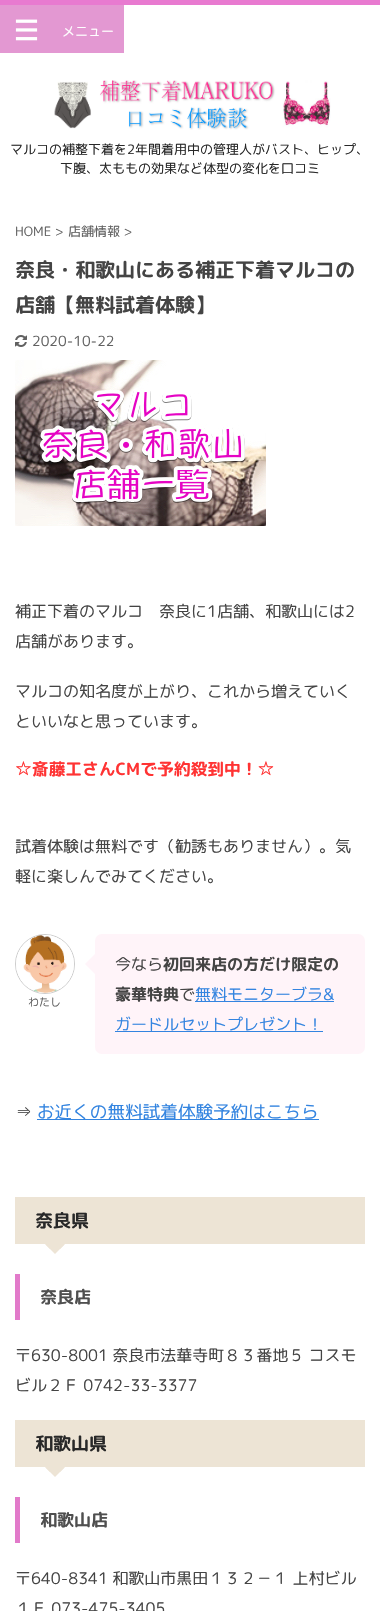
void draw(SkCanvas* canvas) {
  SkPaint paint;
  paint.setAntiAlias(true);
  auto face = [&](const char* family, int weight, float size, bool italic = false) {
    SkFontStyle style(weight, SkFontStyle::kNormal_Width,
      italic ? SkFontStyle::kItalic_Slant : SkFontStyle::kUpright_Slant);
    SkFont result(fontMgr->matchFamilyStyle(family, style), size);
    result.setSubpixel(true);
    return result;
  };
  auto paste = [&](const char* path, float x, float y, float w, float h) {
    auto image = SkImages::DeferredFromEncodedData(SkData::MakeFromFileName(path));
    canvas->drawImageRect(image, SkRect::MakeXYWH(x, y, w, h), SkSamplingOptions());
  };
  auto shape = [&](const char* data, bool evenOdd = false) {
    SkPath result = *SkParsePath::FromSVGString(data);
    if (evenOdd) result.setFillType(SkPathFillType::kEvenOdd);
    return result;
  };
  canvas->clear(0xffe87ad0);
  paint.setColor(0xffffffff);
  canvas->drawRect(SkRect::MakeXYWH(0, 5, 380, 1606), paint);
  paint.setColor(0xffe398d2);
  canvas->drawRect(SkRect::MakeXYWH(0, 5, 124, 48), paint);
  paste("img/1.png", 15, 19, 23, 22);
  paste("img/2.png", 54, 80, 277, 50);
  paste("img/3.png", 15, 335, 12, 12);
  paste("img/4.png", 15, 360, 251, 166);
  paint.setStroke(true);
  paint.setStrokeWidth(1);
  paint.setColor(0xffcccccc);
  canvas->drawCircle(45, 964, 29.5f, paint);
  paste("img/5.png", 16, 935, 58, 58);
  paint.setStroke(false);
  paint.setColor(0xfffff4f9);
  canvas->drawRoundRect(SkRect::MakeXYWH(95, 934, 270, 120), 7, 7, paint);
  canvas->drawPath(shape("M95 954V974L85 964Z"), paint);
  {
    const struct { float x, y, w, h; SkColor color; } items[] = {
      {195, 1001, 139, 1, 0xff3384e0},
      {115, 1031, 208, 1, 0xff3384e0},
      {37, 1119, 282, 1, 0xff3384e0},
      {15, 1197, 350, 47, 0xffede4d5},
    };
    for (auto [x, y, w, h, color] : items) {
      paint.setColor(color);
      canvas->drawRect(SkRect::MakeXYWH(x, y, w, h), paint);
    }
  }
  canvas->drawPath(shape("M45 1244H65L55 1254Z"), paint);
  canvas->drawPath(shape("M47 1244L45.5 1244.5L50 1249H60L64.5 1244.5L63 1244Z"), paint);
  paint.setColor(0xffe27aca);
  canvas->drawRect(SkRect::MakeXYWH(15, 1274, 5, 46), paint);
  paint.setColor(0xffede4d5);
  canvas->drawRect(SkRect::MakeXYWH(15, 1420, 350, 47), paint);
  canvas->drawPath(shape("M45 1467H65L55 1477Z"), paint);
  canvas->drawPath(shape("M47 1467L45.5 1467.5L50 1472H60L64.5 1467.5L63 1467Z"), paint);
  paint.setColor(0xffe27aca);
  canvas->drawRect(SkRect::MakeXYWH(15, 1497, 5, 46), paint);
  auto f0 = face("Rounded Mplus 1c", 400, 13);
  paint.setColor(0xffffffff);
  canvas->drawString("メニュー", 62, 36, f0, paint);
  paint.setColor(0xff282828);
  canvas->drawString("マルコの補整下着を2年間着用中の管理人がバスト、ヒップ、", 10, 154, f0, paint);
  canvas->drawString("下腹、太ももの効果など体型の変化を口コミ", 60, 173, f0, paint);
  paint.setColor(0xff616161);
  canvas->drawString("HOME >", 15, 236, f0, paint);
  canvas->drawString("店舗情報 >", 68, 236, f0, paint);
  auto f1 = face("Rounded Mplus 1c Bold", 700, 20);
  paint.setColor(0xff444444);
  canvas->drawString("奈良・和歌山にある補正下着マルコの", 15, 277, f1, paint);
  canvas->drawString("店舗【無料試着体験】", 15, 312, f1, paint);
  auto f2 = face("Rounded Mplus 1c", 400, 14);
  paint.setColor(0xff616161);
  canvas->drawString("2020-10-22", 32, 346, f2, paint);
  auto f3 = face("Rounded Mplus 1c", 400, 16);
  paint.setColor(0xff444444);
  {
    const struct { const char* s; float x, y; } items[] = {
      {"補正下着のマルコ　奈良に1店舗、和歌山には2", 15, 617},
      {"店舗があります。", 15, 647},
      {"マルコの知名度が上がり、これから増えていく", 15, 697},
      {"といいなと思っています。", 15, 727},
    };
    for (auto [s, x, y] : items) {
      canvas->drawString(s, x, y, f3, paint);
    }
  }
  auto f4 = face("Rounded Mplus 1c Bold", 700, 16.75f);
  paint.setColor(0xffff3333);
  canvas->drawString("☆斎藤工さんCMで予約殺到中！☆", 15, 775, f4, paint);
  paint.setColor(0xff444444);
  canvas->drawString("試着体験は無料です（勧誘もありません）。気", 15, 852, f3, paint);
  canvas->drawString("軽に楽しんでみてください。", 15, 882, f3, paint);
  auto f5 = face("Rounded Mplus 1c", 400, 11);
  paint.setColor(0xff616161);
  canvas->drawString("わたし", 28, 1006, f5, paint);
  paint.setColor(0xff444444);
  canvas->drawString("今なら", 115, 970, f3, paint);
  auto f6 = face("Rounded Mplus 1c Bold", 700, 16);
  canvas->drawString("初回来店の方だけ限定の", 163, 970, f6, paint);
  canvas->drawString("豪華特典", 115, 1000, f6, paint);
  canvas->drawString("で", 179, 1000, f3, paint);
  paint.setColor(0xff3384e0);
  canvas->drawString("無料モニターブラ&", 195, 1000, f3, paint);
  canvas->drawString("ガードルセットプレゼント！", 115, 1030, f3, paint);
  auto f7 = face("Rounded Mplus 1c", 400, 17.6f);
  paint.setColor(0xff444444);
  canvas->drawString("⇒", 15, 1118, f7, paint);
  paint.setColor(0xff3384e0);
  canvas->drawString("お近くの無料試着体験予約はこちら", 37, 1118, f7, paint);
  auto f8 = face("Rounded Mplus 1c Bold", 700, 18);
  paint.setColor(0xff282828);
  canvas->drawString("奈良県", 35, 1227, f8, paint);
  auto f9 = face("Rounded Mplus 1c Bold", 700, 17);
  paint.setColor(0xff4f4f4f);
  canvas->drawString("奈良店", 40, 1303, f9, paint);
  paint.setColor(0xff444444);
  canvas->drawString("〒630-8001 奈良市法華寺町８３番地５ コスモ", 15, 1361, f3, paint);
  canvas->drawString("ビル２Ｆ 0742-33-3377", 15, 1391, f3, paint);
  paint.setColor(0xff282828);
  canvas->drawString("和歌山県", 35, 1450, f8, paint);
  paint.setColor(0xff4f4f4f);
  canvas->drawString("和歌山店", 40, 1526, f9, paint);
  paint.setColor(0xff444444);
  canvas->drawString("〒640-8341 和歌山市黒田１３２－１ 上村ビル", 15, 1584, f3, paint);
  canvas->drawString("１Ｆ 073-475-3405", 15, 1614, f3, paint);
}
